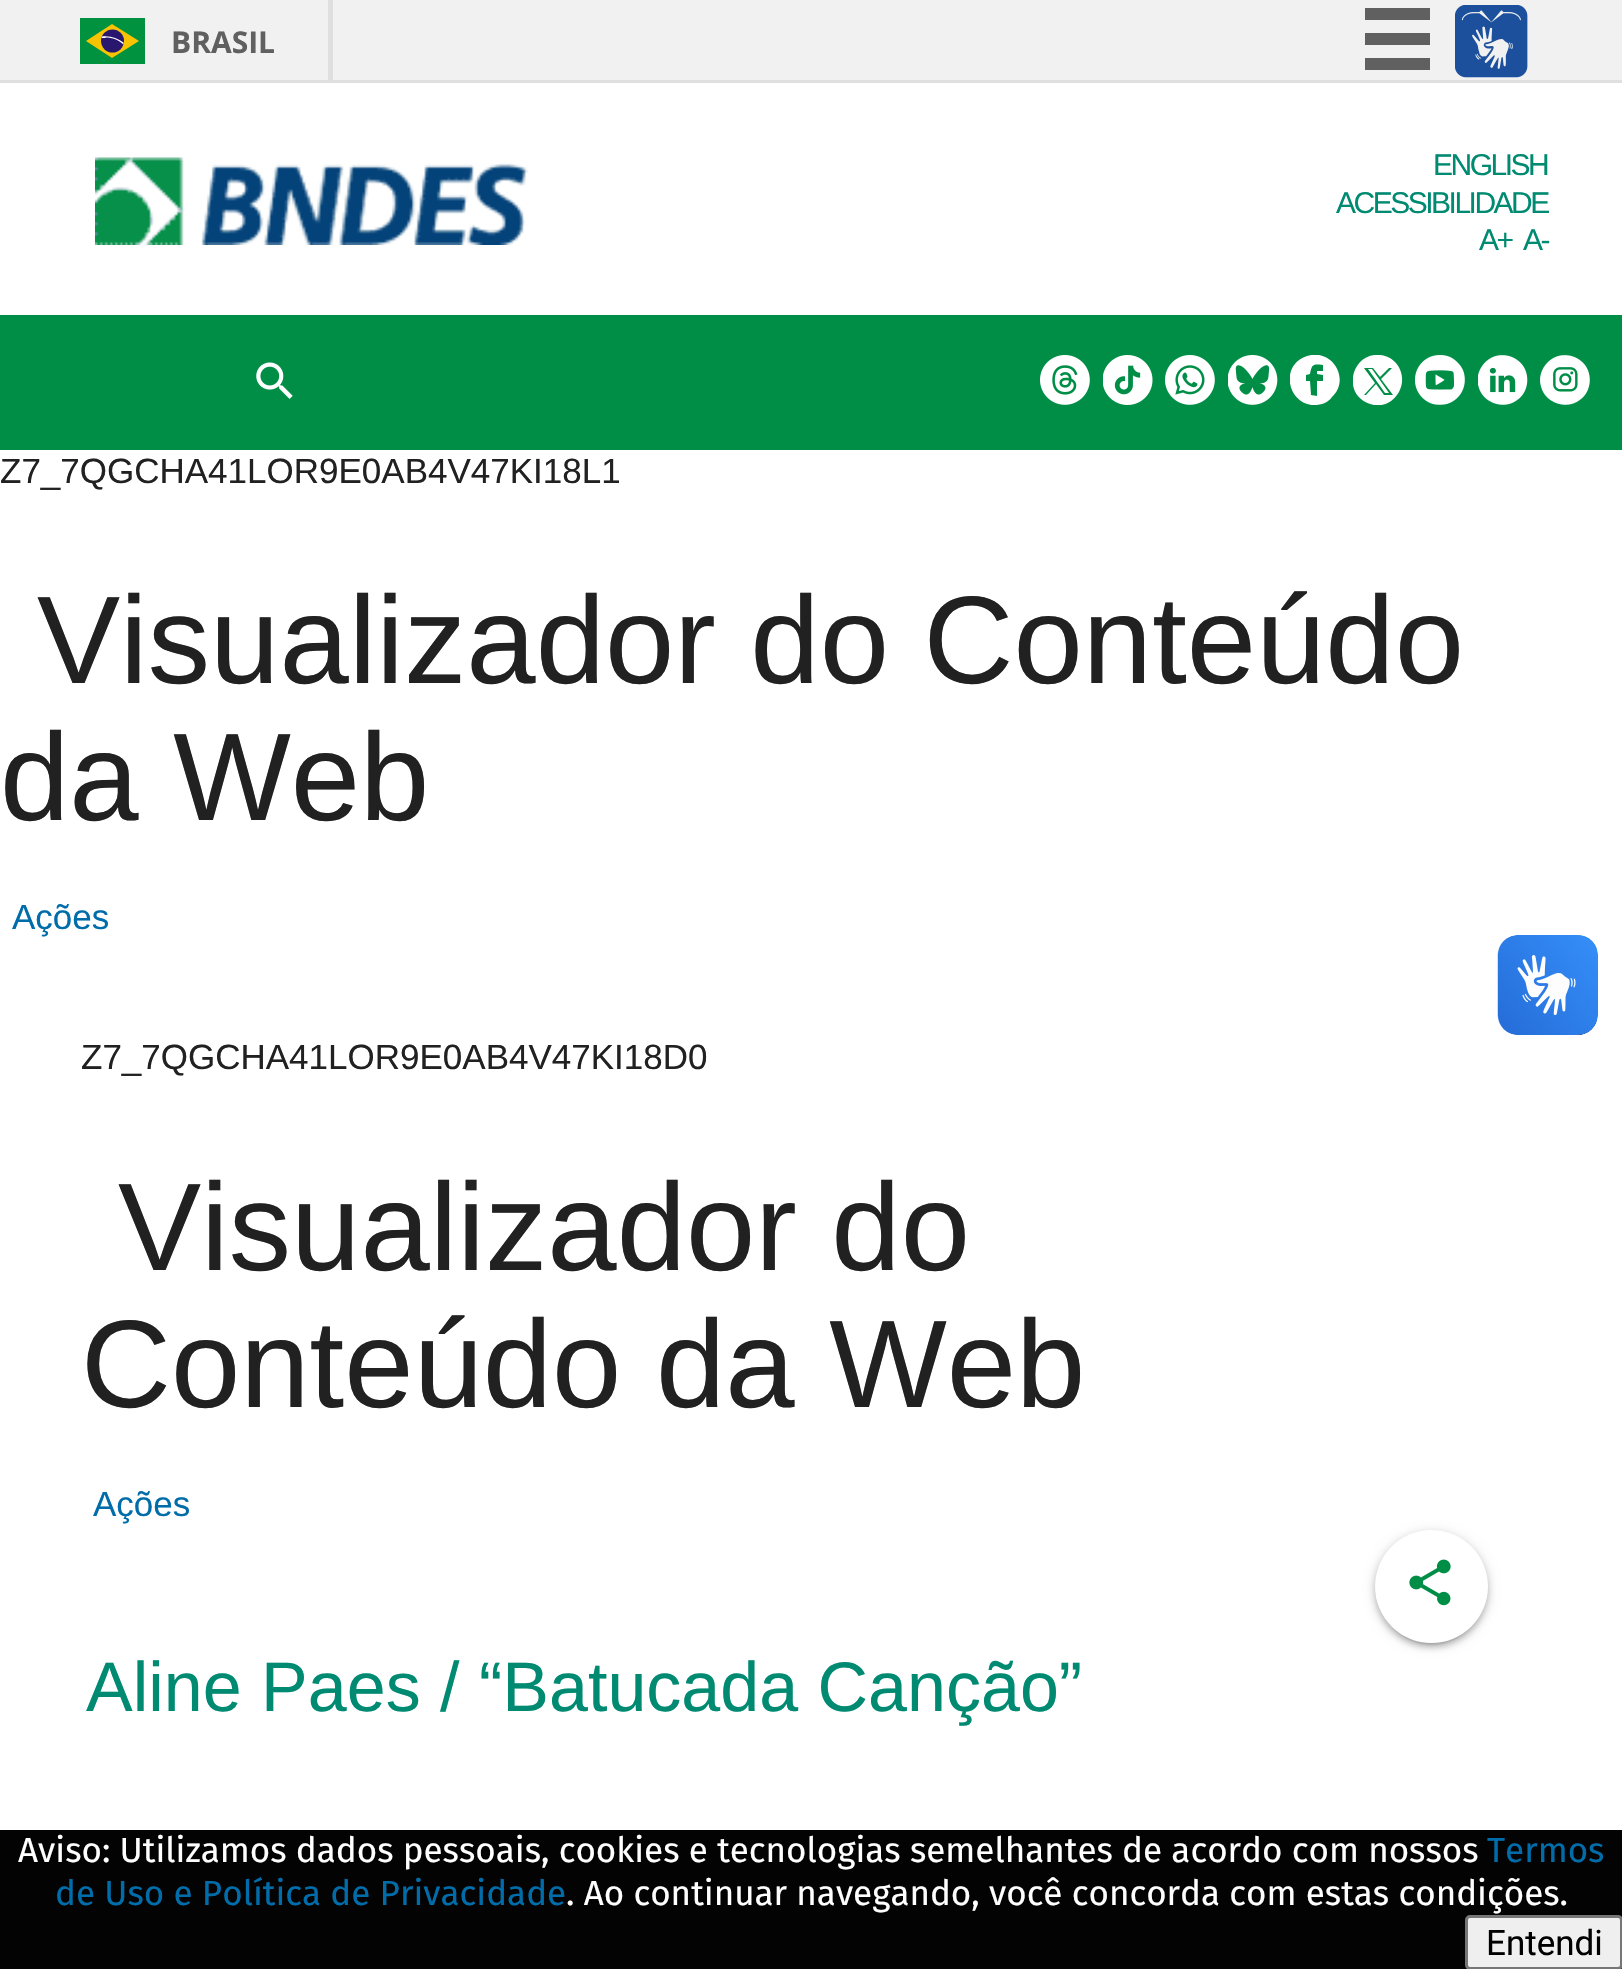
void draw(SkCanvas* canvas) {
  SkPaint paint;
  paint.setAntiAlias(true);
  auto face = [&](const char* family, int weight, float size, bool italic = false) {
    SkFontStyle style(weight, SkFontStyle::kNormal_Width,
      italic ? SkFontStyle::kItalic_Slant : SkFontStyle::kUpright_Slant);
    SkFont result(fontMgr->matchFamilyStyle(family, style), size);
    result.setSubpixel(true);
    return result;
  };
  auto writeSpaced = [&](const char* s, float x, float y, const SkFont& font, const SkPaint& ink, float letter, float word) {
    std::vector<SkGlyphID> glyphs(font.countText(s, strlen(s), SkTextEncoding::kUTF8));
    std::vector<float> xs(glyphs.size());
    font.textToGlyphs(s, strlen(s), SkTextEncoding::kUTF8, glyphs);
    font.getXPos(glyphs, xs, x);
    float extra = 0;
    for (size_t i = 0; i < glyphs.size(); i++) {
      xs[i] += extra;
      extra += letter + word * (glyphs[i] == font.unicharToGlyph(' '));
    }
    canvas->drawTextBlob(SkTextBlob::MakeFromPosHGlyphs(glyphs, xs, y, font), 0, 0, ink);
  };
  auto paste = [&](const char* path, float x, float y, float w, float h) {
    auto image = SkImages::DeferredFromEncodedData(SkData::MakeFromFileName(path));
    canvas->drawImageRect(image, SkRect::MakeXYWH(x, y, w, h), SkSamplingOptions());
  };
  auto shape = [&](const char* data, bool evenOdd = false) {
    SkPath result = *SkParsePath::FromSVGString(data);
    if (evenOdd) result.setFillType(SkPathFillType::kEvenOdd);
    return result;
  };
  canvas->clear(0xffffffff);
  {
    const struct { float x, y, w, h; SkColor color; } items[] = {
      {0, 0, 1622, 80, 0xfff1f1f1},
      {0, 80, 1622, 3, 0xffdfdfdf},
      {328, 0, 5, 80, 0xffdfdfdf},
      {80, 18, 65, 46, 0xff00923f},
    };
    for (auto [x, y, w, h, color] : items) {
      paint.setColor(color);
      canvas->drawRect(SkRect::MakeXYWH(x, y, w, h), paint);
    }
  }
  paint.setColor(0xfff8c300);
  canvas->drawPath(shape("M112 24L86 41L112 58L139 41Z"), paint);
  paint.setColor(0xff28166f);
  canvas->drawCircle(112.5f, 41, 11.5f, paint);
  paint.setColor(0xffffffff);
  canvas->drawPath(shape("M105.5 37.5C112.5 37.5 118.5 40 123.5 44.5V42.5C117.5 38 110 35.5 102 36.5L101.5 38H105.5Z"), paint);
  {
    const struct { float x, y, w, h; SkColor color; } items[] = {
      {1365, 8, 65, 12, 0xff606060},
      {1365, 33, 65, 12, 0xff606060},
      {1365, 58, 65, 12, 0xff606060},
    };
    for (auto [x, y, w, h, color] : items) {
      paint.setColor(color);
      canvas->drawRect(SkRect::MakeXYWH(x, y, w, h), paint);
    }
  }
  paste("img/1.png", 1455, 5, 73, 73);
  paste("img/2.png", 95, 157, 433, 88);
  paint.setColor(0xff008e47);
  canvas->drawRect(SkRect::MakeXYWH(0, 315, 1622, 135), paint);
  paste("img/3.png", 256, 362, 37, 37);
  paste("img/4.png", 1040, 355, 50, 50);
  paste("img/5.png", 1103, 355, 50, 50);
  paste("img/6.png", 1165, 355, 50, 50);
  paste("img/7.png", 1228, 355, 50, 50);
  canvas->save();
  canvas->clipRect(SkRect::MakeXYWH(1290, 355, 50, 50));
  paint.setColor(0xffffffff);
  canvas->drawPath(shape("M1307 356C1276 366 1290 413 1322 404C1326 403 1330 400 1332 397C1351 379 1332 348 1307 356ZM1323 368V371H1317V374L1323 375V381H1317V396L1311 395L1310 381H1306V375L1310 374C1312 364 1313 364 1323 365Z"), paint);
  canvas->restore();
  canvas->save();
  canvas->clipRect(SkRect::MakeXYWH(1353, 355, 50, 50));
  canvas->drawPath(shape("M1370 404C1339 394 1353 347 1385 356C1389 357 1392 359 1395 362C1413 381 1394 412 1370 404ZM1364 368L1375 383L1364 395H1366L1376 384L1384 395H1393L1381 379L1392 368H1389L1380 377L1373 368ZM1368 369H1372L1389 393H1385Z"), paint);
  canvas->restore();
  paste("img/8.png", 1415, 355, 50, 50);
  paste("img/9.png", 1478, 355, 50, 50);
  paste("img/10.png", 1540, 355, 50, 50);
  paint.setColor(0x33000000);
  paint.setMaskFilter(SkMaskFilter::MakeBlur(kNormal_SkBlurStyle, 6));
  canvas->drawRoundRect(SkRect::MakeXYWH(1375, 1533, 113, 112), 56, 56, paint);
  paint.setMaskFilter(nullptr);
  paint.setColor(0x1f000000);
  paint.setMaskFilter(SkMaskFilter::MakeBlur(kNormal_SkBlurStyle, 1));
  canvas->drawRoundRect(SkRect::MakeXYWH(1380, 1543, 103, 102), 51, 51, paint);
  paint.setMaskFilter(nullptr);
  paint.setColor(0x24000000);
  paint.setMaskFilter(SkMaskFilter::MakeBlur(kNormal_SkBlurStyle, 2.5f));
  canvas->drawRoundRect(SkRect::MakeXYWH(1375, 1535, 113, 113), 56.5f, 56.5f, paint);
  paint.setMaskFilter(nullptr);
  paint.setColor(0xffffffff);
  canvas->drawCircle(1431.5f, 1586.5f, 56.5f, paint);
  paste("img/11.png", 1409, 1559, 42, 47);
  paste("img/12.png", 1497, 935, 101, 100);
  paste("img/13.png", 1498, 935, 100, 100);
  paint.setColor(0xff030303);
  canvas->drawRect(SkRect::MakeXYWH(0, 1830, 1622, 139), paint);
  paint.setColor(0xffefefef);
  canvas->drawRoundRect(SkRect::MakeXYWH(1466.5f, 1916.5f, 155, 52), 3.5f, 3.5f, paint);
  paint.setStroke(true);
  paint.setStrokeWidth(3);
  paint.setColor(0xff767676);
  canvas->drawRoundRect(SkRect::MakeXYWH(1466.5f, 1916.5f, 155, 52), 3.5f, 3.5f, paint);
  auto f0 = face("Open Sans", 700, 30);
  paint.setStroke(false);
  paint.setColor(0xff606060);
  canvas->drawString("BRASIL", 171, 53, f0, paint);
  auto f1 = face("Liberation Sans", 400, 30);
  paint.setColor(0xff008a71);
  {
    const struct { const char* s; float x, y; } items[] = {
      {"ENGLISH", 1433, 175},
      {"ACESSIBILIDADE", 1336, 213},
      {"A+", 1479, 250},
      {"A-", 1523, 250},
    };
    for (auto [s, x, y] : items) {
      writeSpaced(s, x, y, f1, paint, -2.5f, 0);
    }
  }
  auto f2 = face("Liberation Sans", 400, 35);
  paint.setColor(0xff212121);
  canvas->drawString("Z7_7QGCHA41LOR9E0AB4V47KI18L1", 0, 483, f2, paint);
  auto f3 = face("Liberation Sans", 400, 124.6f);
  canvas->drawString("Visualizador do Conteúdo", 37, 683, f3, paint);
  canvas->drawString("da Web", 0, 820, f3, paint);
  paint.setColor(0xff006daa);
  canvas->drawString("Ações", 12, 929, f2, paint);
  paint.setColor(0xff212121);
  canvas->drawString("Z7_7QGCHA41LOR9E0AB4V47KI18D0", 81, 1069, f2, paint);
  canvas->drawString("Visualizador do", 118, 1270, f3, paint);
  canvas->drawString("Conteúdo da Web", 81, 1407, f3, paint);
  paint.setColor(0xff006daa);
  canvas->drawString("Ações", 93, 1516, f2, paint);
  auto f4 = face("Liberation Sans", 400, 70);
  paint.setColor(0xff008a71);
  canvas->drawString("Aline Paes / “Batucada Canção”", 86, 1711, f4, paint);
  auto f5 = face("Fira Sans", 400, 35);
  paint.setColor(0xffffffff);
  canvas->drawString("Aviso: Utilizamos dados pessoais, cookies e tecnologias semelhantes de acordo com nossos", 18, 1862, f5, paint);
  paint.setColor(0xff006daa);
  canvas->drawString("Termos", 1487, 1862, f5, paint);
  canvas->drawString("de Uso e Política de Privacidade", 55, 1905, f5, paint);
  paint.setColor(0xffffffff);
  canvas->drawString(". Ao continuar navegando, você concorda com estas condições.", 566, 1905, f5, paint);
  auto f6 = face("Roboto", 400, 35);
  paint.setColor(0xff000000);
  canvas->drawString("Entendi", 1486, 1955, f6, paint);
}
